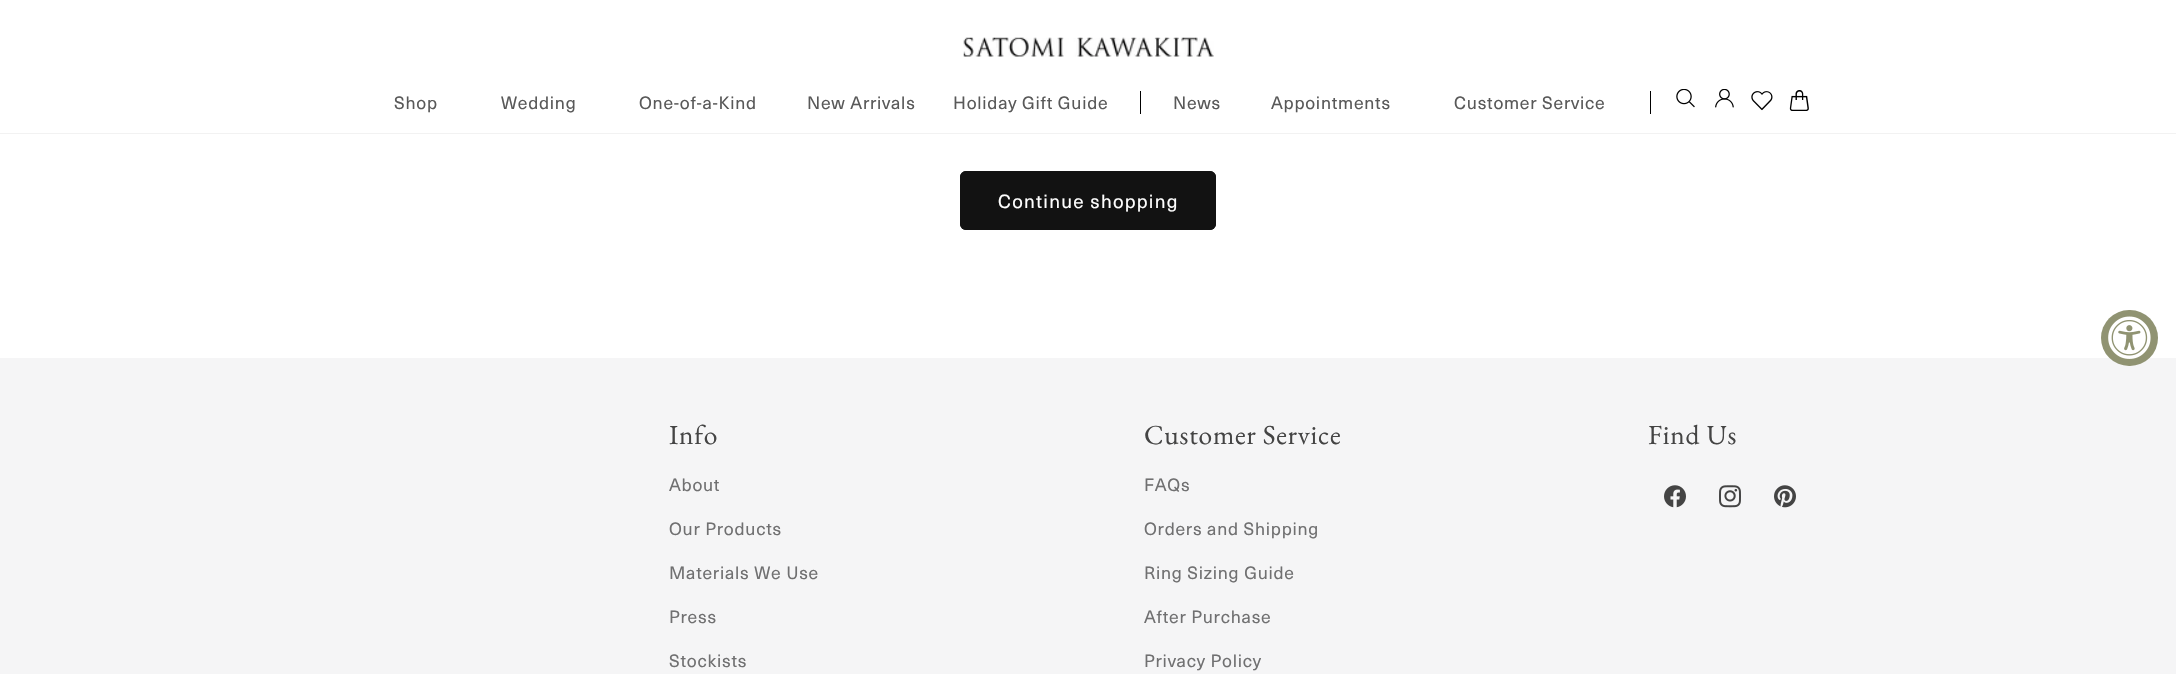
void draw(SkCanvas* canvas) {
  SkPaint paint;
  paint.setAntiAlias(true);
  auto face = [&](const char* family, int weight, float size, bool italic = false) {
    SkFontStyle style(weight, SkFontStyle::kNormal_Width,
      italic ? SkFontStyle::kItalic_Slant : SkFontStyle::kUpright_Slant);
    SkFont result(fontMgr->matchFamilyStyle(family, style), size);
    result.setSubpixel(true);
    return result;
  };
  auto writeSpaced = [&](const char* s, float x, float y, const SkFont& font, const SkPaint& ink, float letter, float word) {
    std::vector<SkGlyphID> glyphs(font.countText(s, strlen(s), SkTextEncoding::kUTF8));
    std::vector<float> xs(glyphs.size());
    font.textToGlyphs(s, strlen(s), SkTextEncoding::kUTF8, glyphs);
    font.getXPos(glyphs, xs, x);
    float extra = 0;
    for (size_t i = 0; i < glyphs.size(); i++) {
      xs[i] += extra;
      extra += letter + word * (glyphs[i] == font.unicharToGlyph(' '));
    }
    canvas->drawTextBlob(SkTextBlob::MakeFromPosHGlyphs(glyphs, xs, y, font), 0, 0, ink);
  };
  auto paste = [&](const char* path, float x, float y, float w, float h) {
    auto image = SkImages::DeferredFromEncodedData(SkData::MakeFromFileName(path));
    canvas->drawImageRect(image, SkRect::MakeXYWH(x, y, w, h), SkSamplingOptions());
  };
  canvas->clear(0xffffffff);
  paint.setColor(0xfff2f2f2);
  canvas->drawRect(SkRect::MakeXYWH(0, 133, 2176, 1), paint);
  paste("img/1.png", 963, 37, 251, 20);
  paint.setColor(0xff000000);
  canvas->drawRect(SkRect::MakeXYWH(1140, 91, 1, 23), paint);
  canvas->drawRect(SkRect::MakeXYWH(1650, 91, 1, 23), paint);
  paste("img/2.png", 1676, 89, 19, 19);
  paste("img/3.png", 1715, 89, 19, 19);
  paste("img/4.png", 1751, 91, 22, 20);
  paste("img/5.png", 1789, 90, 20, 21);
  paint.setColor(0xff121212);
  canvas->drawRoundRect(SkRect::MakeXYWH(960, 171, 256, 59), 6, 6, paint);
  paint.setStroke(true);
  paint.setStrokeWidth(1);
  canvas->drawRoundRect(SkRect::MakeXYWH(960.5f, 171.5f, 255, 58), 5.5f, 5.5f, paint);
  paint.setStroke(false);
  paint.setColor(0xfff5f5f6);
  canvas->drawRect(SkRect::MakeXYWH(0, 358, 2176, 316), paint);
  paint.setColor(0xff909372);
  canvas->drawRoundRect(SkRect::MakeXYWH(2101, 310, 57, 56), 28, 28, paint);
  paste("img/6.png", 2108, 316, 43, 43);
  paste("img/7.png", 1664, 485, 22, 23);
  paste("img/8.png", 1719, 485, 22, 23);
  paste("img/9.png", 1774, 485, 22, 23);
  auto f0 = face("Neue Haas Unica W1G", 400, 17.5f);
  paint.setColor(0xff595959);
  {
    const struct { const char* s; float x, y; } items[] = {
      {"Shop", 394, 109},
      {"Wedding", 501, 109},
      {"One-of-a-Kind", 639, 109},
      {"New Arrivals", 807, 109},
      {"Holiday Gift Guide", 953, 109},
      {"News", 1173, 109},
      {"Appointments", 1271, 109},
      {"Customer Service", 1454, 109},
    };
    for (auto [s, x, y] : items) {
      writeSpaced(s, x, y, f0, paint, 0.75f, 0);
    }
  }
  auto f1 = face("Neue Haas Unica W1G", 400, 18.75f);
  paint.setColor(0xffffffff);
  writeSpaced("Continue shopping", 998, 208, f1, paint, 1.25f, 0);
  auto f2 = face("EB Garamond", 400, 27.5f);
  paint.setColor(0xff444444);
  writeSpaced("Info", 669, 444, f2, paint, 0.75f, 0);
  paint.setColor(0xff707071);
  {
    const struct { const char* s; float x, y; } items[] = {
      {"About", 669, 491},
      {"Our Products", 669, 535},
      {"Materials We Use", 669, 579},
      {"Press", 669, 623},
      {"Stockists", 669, 667},
    };
    for (auto [s, x, y] : items) {
      writeSpaced(s, x, y, f0, paint, 0.75f, 0);
    }
  }
  paint.setColor(0xff444444);
  writeSpaced("Customer Service", 1144, 444, f2, paint, 0.75f, 0);
  paint.setColor(0xff707071);
  {
    const struct { const char* s; float x, y; } items[] = {
      {"FAQs", 1144, 491},
      {"Orders and Shipping", 1144, 535},
      {"Ring Sizing Guide", 1144, 579},
      {"After Purchase", 1144, 623},
      {"Privacy Policy", 1144, 667},
    };
    for (auto [s, x, y] : items) {
      writeSpaced(s, x, y, f0, paint, 0.75f, 0);
    }
  }
  paint.setColor(0xff444444);
  writeSpaced("Find Us", 1648, 444, f2, paint, 0.75f, 0);
}
